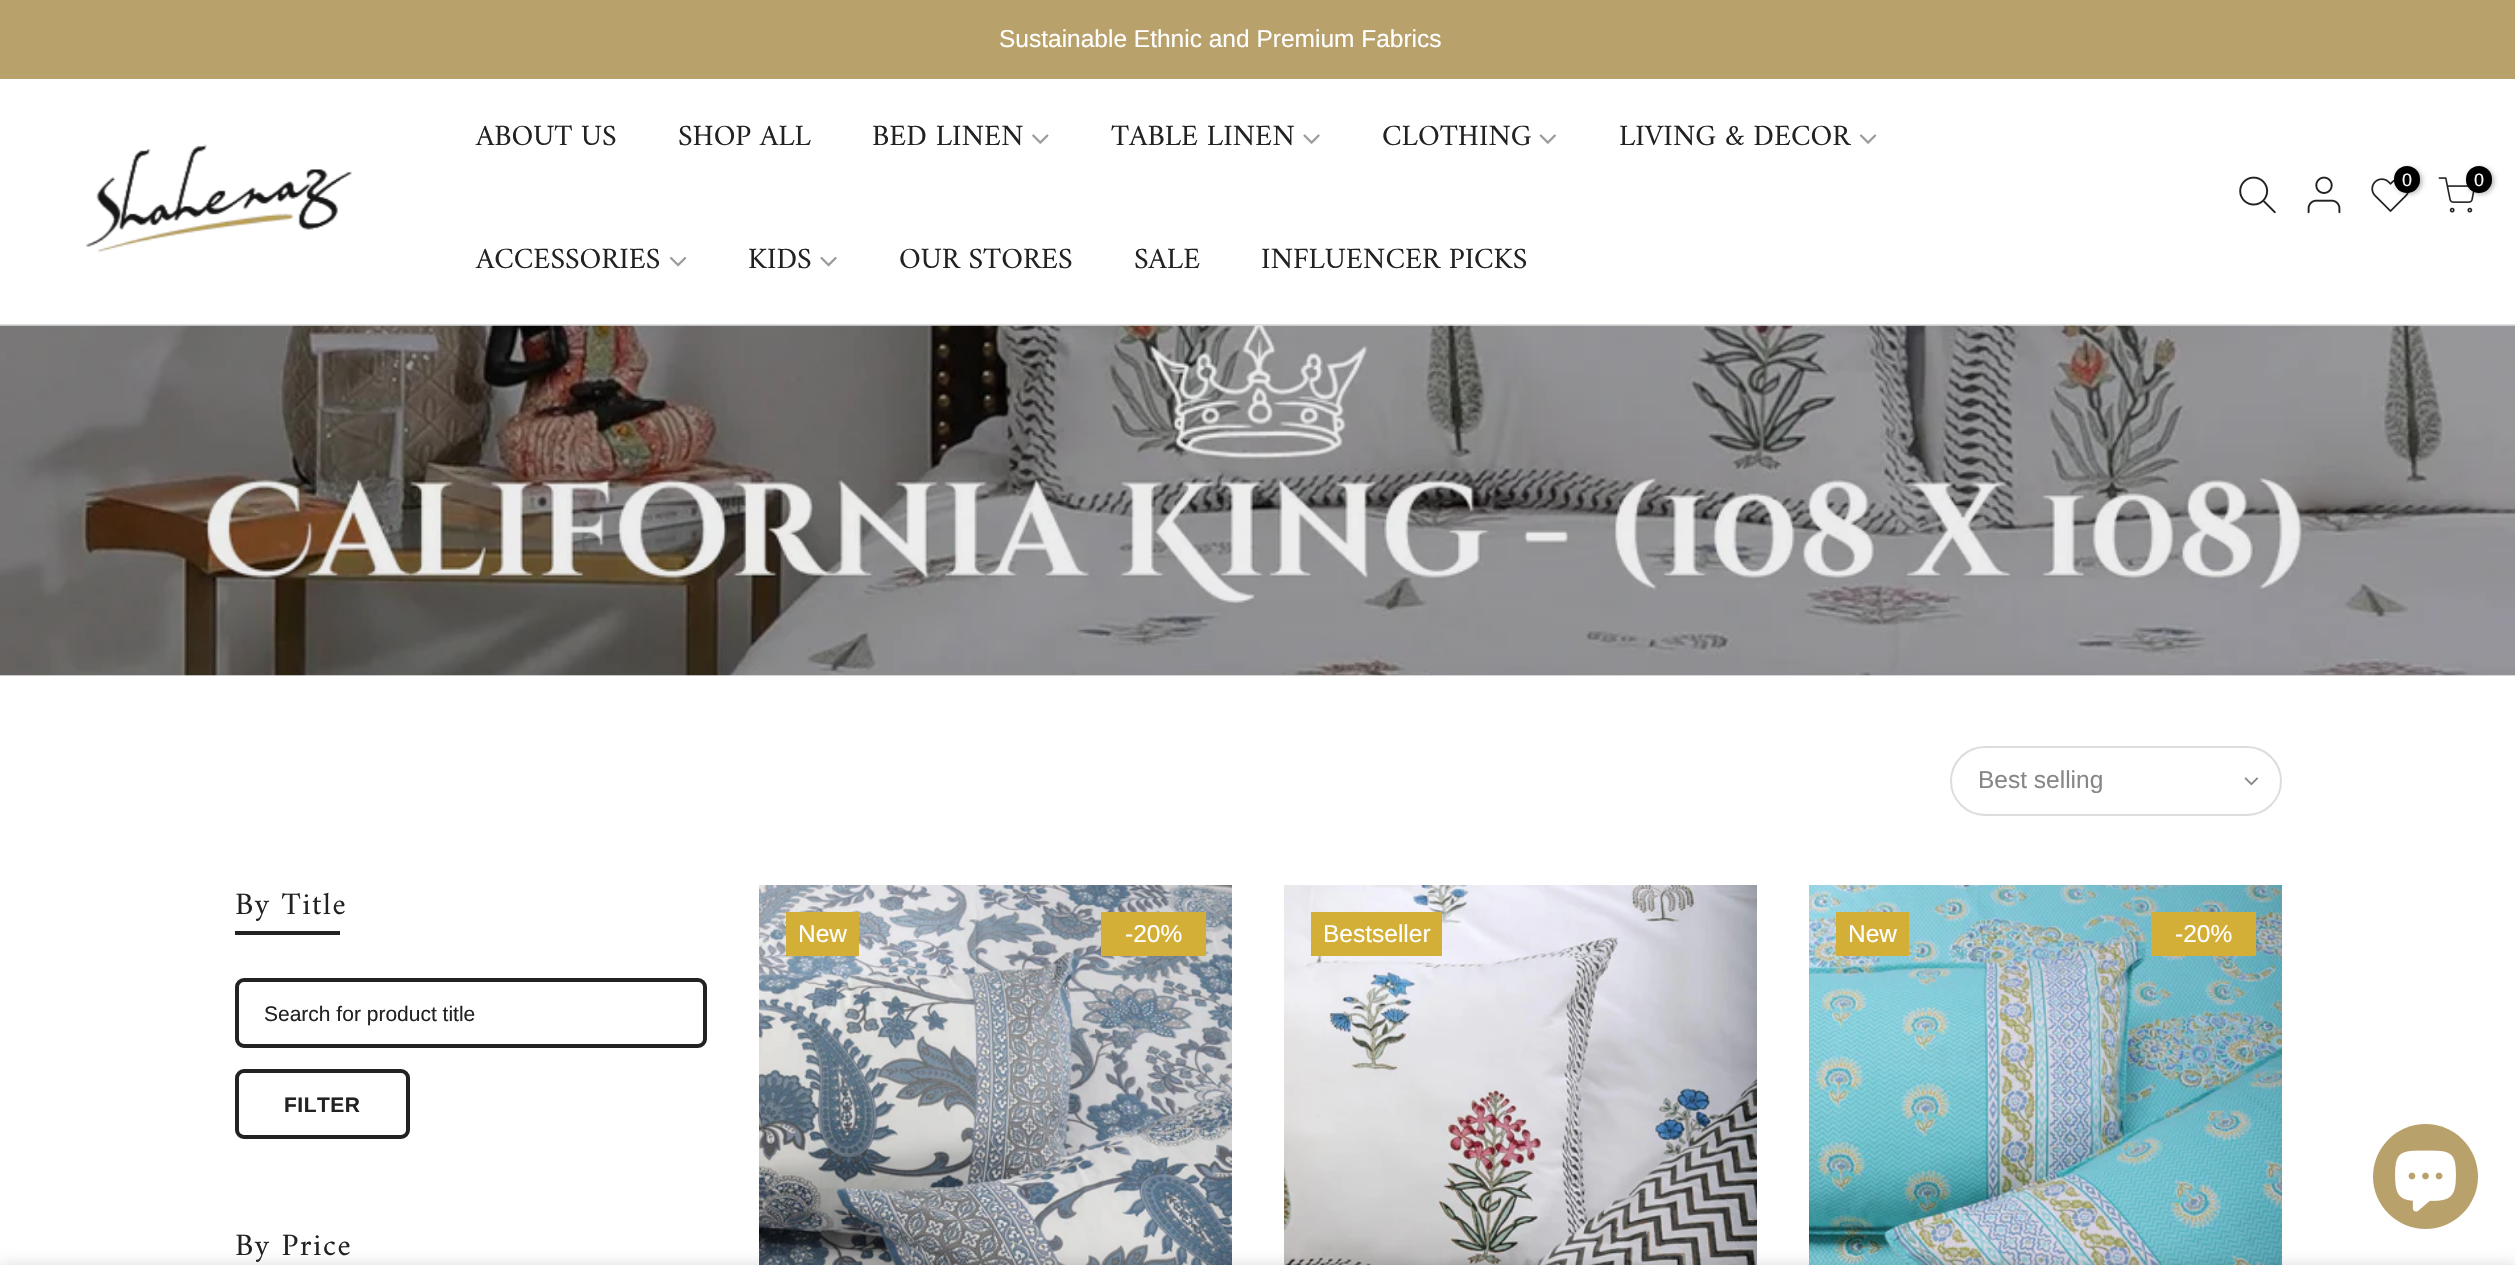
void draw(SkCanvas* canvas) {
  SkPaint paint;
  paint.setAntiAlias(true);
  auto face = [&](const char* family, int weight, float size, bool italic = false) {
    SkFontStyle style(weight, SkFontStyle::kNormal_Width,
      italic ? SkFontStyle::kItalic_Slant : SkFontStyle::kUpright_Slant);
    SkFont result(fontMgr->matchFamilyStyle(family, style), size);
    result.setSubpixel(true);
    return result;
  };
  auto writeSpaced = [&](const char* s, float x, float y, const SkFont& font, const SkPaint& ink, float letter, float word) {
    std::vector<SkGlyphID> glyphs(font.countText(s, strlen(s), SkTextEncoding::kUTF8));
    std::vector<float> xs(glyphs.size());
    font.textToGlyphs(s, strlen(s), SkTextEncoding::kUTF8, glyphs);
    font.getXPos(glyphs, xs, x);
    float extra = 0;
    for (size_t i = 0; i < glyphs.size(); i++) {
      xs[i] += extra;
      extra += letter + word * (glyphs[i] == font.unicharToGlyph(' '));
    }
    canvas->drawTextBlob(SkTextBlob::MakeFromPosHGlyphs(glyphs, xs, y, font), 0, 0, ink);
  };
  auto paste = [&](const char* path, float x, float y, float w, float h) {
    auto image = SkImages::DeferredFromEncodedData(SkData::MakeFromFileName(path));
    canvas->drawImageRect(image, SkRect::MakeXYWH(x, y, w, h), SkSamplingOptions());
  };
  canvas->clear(0xffffffff);
  paint.setColor(0xffededed);
  canvas->drawRect(SkRect::MakeXYWH(0, 675, 2515, 1), paint);
  paint.setColor(0xffb9a16b);
  canvas->drawRect(SkRect::MakeXYWH(0, 0, 2515, 79), paint);
  paste("img/1.png", 85, 144, 267, 109);
  paste("img/2.png", 1032, 134, 17, 10);
  paste("img/3.png", 1303, 134, 17, 10);
  paste("img/4.png", 1539, 134, 17, 10);
  paste("img/5.png", 1859, 134, 18, 10);
  paste("img/6.png", 669, 256, 18, 11);
  paste("img/7.png", 820, 256, 17, 11);
  paste("img/8.png", 2239, 176, 37, 38);
  paste("img/9.png", 2307, 176, 34, 38);
  paste("img/10.png", 2371, 178, 38, 34);
  paint.setColor(0x4d000000);
  paint.setMaskFilter(SkMaskFilter::MakeBlur(kNormal_SkBlurStyle, 2.5f));
  canvas->drawRoundRect(SkRect::MakeXYWH(2396, 168, 26, 26), 13, 13, paint);
  paint.setMaskFilter(nullptr);
  paint.setColor(0xff000000);
  canvas->drawRoundRect(SkRect::MakeXYWH(2394, 166, 26, 27), 13, 13, paint);
  paste("img/11.png", 2438, 177, 37, 36);
  paint.setColor(0x4d000000);
  paint.setMaskFilter(SkMaskFilter::MakeBlur(kNormal_SkBlurStyle, 2.5f));
  canvas->drawRoundRect(SkRect::MakeXYWH(2468, 168, 26, 26), 13, 13, paint);
  paint.setMaskFilter(nullptr);
  paint.setColor(0xff000000);
  canvas->drawRoundRect(SkRect::MakeXYWH(2466, 166, 26, 27), 13, 13, paint);
  paint.setColor(0xffdedede);
  canvas->drawRect(SkRect::MakeXYWH(0, 324, 2515, 2), paint);
  paste("img/12.png", 0, 325, 2515, 351);
  paint.setStroke(true);
  paint.setStrokeWidth(2);
  paint.setColor(0xffdddddd);
  canvas->drawRoundRect(SkRect::MakeXYWH(1951, 747, 330, 68), 34, 34, paint);
  paste("img/13.png", 2244, 777, 15, 9);
  paint.setStroke(false);
  paint.setColor(0xff222222);
  canvas->drawRect(SkRect::MakeXYWH(235, 931, 105, 4), paint);
  paint.setStroke(true);
  paint.setStrokeWidth(4);
  canvas->drawRoundRect(SkRect::MakeXYWH(237, 980, 468, 66), 7, 7, paint);
  canvas->drawRoundRect(SkRect::MakeXYWH(237, 1071, 171, 66), 7, 7, paint);
  paste("img/14.png", 759, 885, 473, 380);
  paint.setStroke(false);
  paint.setColor(0xffd4af37);
  canvas->drawRect(SkRect::MakeXYWH(786, 912, 73, 44), paint);
  canvas->drawRect(SkRect::MakeXYWH(1101, 912, 105, 44), paint);
  paste("img/15.png", 1284, 885, 473, 380);
  canvas->drawRect(SkRect::MakeXYWH(1311, 912, 131, 44), paint);
  paste("img/16.png", 1809, 885, 473, 380);
  canvas->drawRect(SkRect::MakeXYWH(1836, 912, 73, 44), paint);
  canvas->drawRect(SkRect::MakeXYWH(2151, 912, 105, 44), paint);
  paint.setColor(0xffb9a16b);
  canvas->drawCircle(2425.5f, 1176.5f, 52.5f, paint);
  paste("img/17.png", 2395, 1150, 61, 62);
  paint.setColor(0x24000000);
  paint.setMaskFilter(SkMaskFilter::MakeBlur(kNormal_SkBlurStyle, 8));
  canvas->drawRect(SkRect::MakeXYWH(0, 1265, 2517, 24), paint);
  paint.setMaskFilter(nullptr);
  auto f0 = face("Liberation Sans", 400, 24.5f);
  paint.setColor(0xffffffff);
  canvas->drawString("Sustainable Ethnic and Premium Fabrics", 999, 47, f0, paint);
  auto f1 = face("Amiri", 400, 29.75f);
  paint.setColor(0xff222222);
  {
    const struct { const char* s; float x, y; } items[] = {
      {"ABOUT US", 476, 145},
      {"SHOP ALL", 678, 145},
      {"BED LINEN", 872, 145},
      {"TABLE LINEN", 1111, 145},
      {"CLOTHING", 1382, 145},
      {"LIVING & DECOR", 1619, 145},
      {"ACCESSORIES", 476, 268},
      {"KIDS", 748, 268},
      {"OUR STORES", 899, 268},
      {"SALE", 1134, 268},
      {"INFLUENCER PICKS", 1261, 268},
    };
    for (auto [s, x, y] : items) {
      canvas->drawString(s, x, y, f1, paint);
    }
  }
  auto f2 = face("Liberation Sans", 400, 18);
  paint.setColor(0xffffffff);
  canvas->drawString("0", 2402, 186, f2, paint);
  canvas->drawString("0", 2474, 186, f2, paint);
  paint.setColor(0xff878787);
  canvas->drawString("Best selling", 1978, 788, f0, paint);
  auto f3 = face("Amiri", 400, 31.5f);
  paint.setColor(0xff222222);
  writeSpaced("By Title", 235, 914, f3, paint, 1.5f, 0);
  auto f4 = face("Liberation Sans", 400, 21);
  canvas->drawString("Search for product title", 264, 1021, f4, paint);
  auto f5 = face("Liberation Sans", 700, 21);
  writeSpaced("FILTER", 284, 1112, f5, paint, 0.5f, 0);
  writeSpaced("By Price", 235, 1255, f3, paint, 1.5f, 0);
  paint.setColor(0xffffffff);
  {
    const struct { const char* s; float x, y; } items[] = {
      {"New", 798, 942},
      {"-20%", 1125, 942},
      {"Bestseller", 1323, 942},
      {"New", 1848, 942},
      {"-20%", 2175, 942},
    };
    for (auto [s, x, y] : items) {
      canvas->drawString(s, x, y, f0, paint);
    }
  }
}
